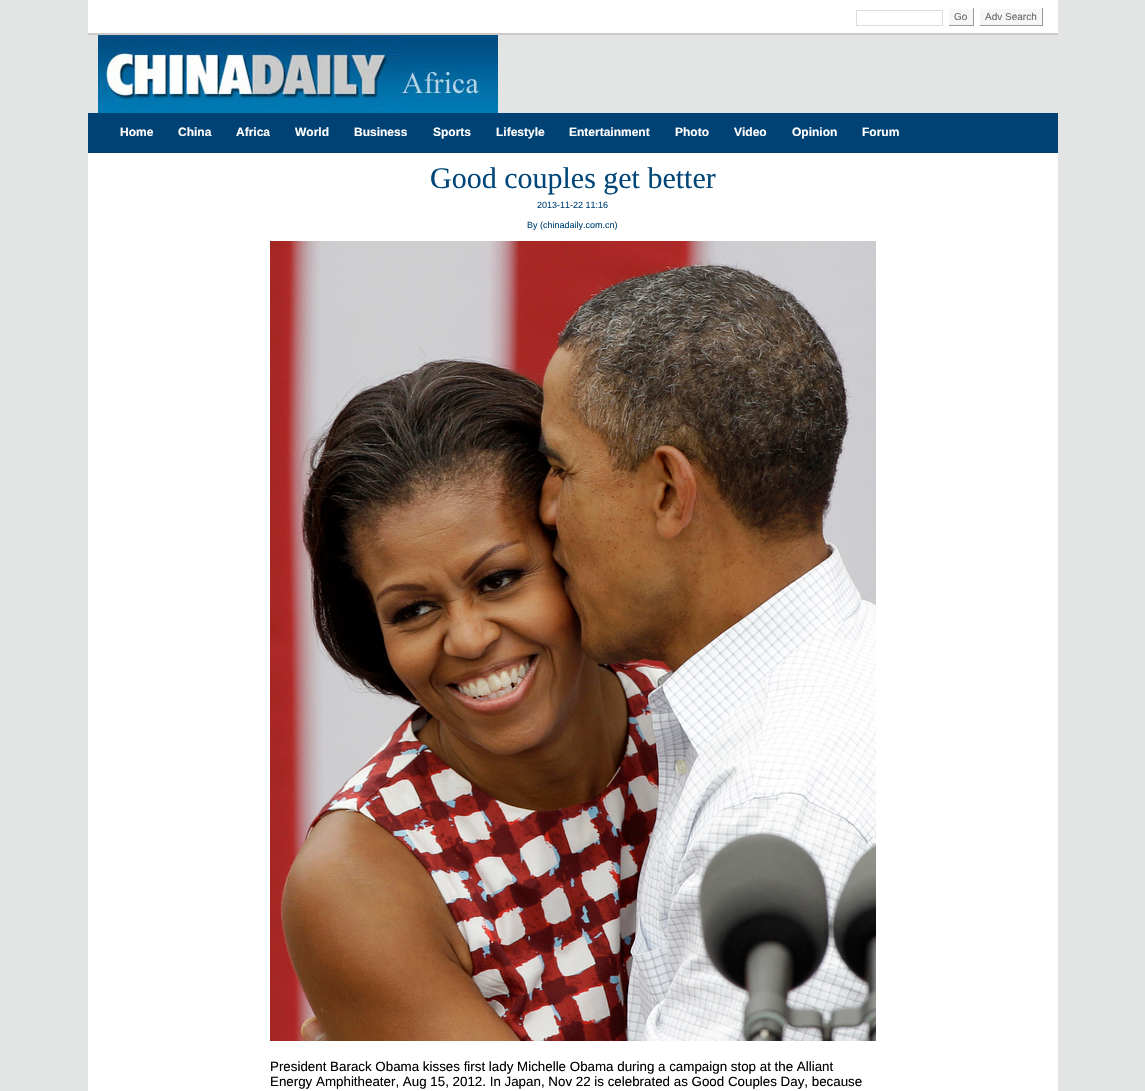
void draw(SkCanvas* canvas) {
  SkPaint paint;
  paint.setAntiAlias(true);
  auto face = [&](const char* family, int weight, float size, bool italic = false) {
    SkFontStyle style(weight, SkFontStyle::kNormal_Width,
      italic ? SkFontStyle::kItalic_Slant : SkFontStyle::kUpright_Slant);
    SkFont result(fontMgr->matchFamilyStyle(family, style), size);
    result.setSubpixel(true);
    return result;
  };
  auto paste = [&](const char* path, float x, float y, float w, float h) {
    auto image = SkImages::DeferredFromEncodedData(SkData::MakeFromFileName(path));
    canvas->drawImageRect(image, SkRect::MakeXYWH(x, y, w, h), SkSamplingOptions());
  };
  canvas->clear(0xffe3e4e4);
  paint.setColor(0xffffffff);
  canvas->drawRect(SkRect::MakeXYWH(88, 0, 970, 33), paint);
  paint.setColor(0xffcdc9c6);
  canvas->drawRect(SkRect::MakeXYWH(88, 33, 970, 2), paint);
  paint.setStroke(true);
  paint.setStrokeWidth(1);
  paint.setColor(0xffdcdcdc);
  canvas->drawRect(SkRect::MakeXYWH(856.5f, 10.5f, 86, 15), paint);
  paint.setStroke(false);
  {
    const struct { float x, y, w, h; SkColor color; } items[] = {
      {949, 9, 24, 16, 0xfff6f6f6},
      {973, 8, 1, 18, 0xff999999},
      {948, 25, 26, 1, 0xff999999},
      {948, 25, 1, 1, 0xffffffff},
      {980, 9, 62, 16, 0xfff6f6f6},
      {1042, 8, 1, 18, 0xff999999},
      {979, 25, 64, 1, 0xff999999},
      {979, 25, 1, 1, 0xffffffff},
    };
    for (auto [x, y, w, h, color] : items) {
      paint.setColor(color);
      canvas->drawRect(SkRect::MakeXYWH(x, y, w, h), paint);
    }
  }
  paste("img/1.png", 98, 35, 400, 78);
  paint.setColor(0xff004273);
  canvas->drawRect(SkRect::MakeXYWH(88, 113, 970, 40), paint);
  paint.setColor(0xffffffff);
  canvas->drawRect(SkRect::MakeXYWH(88, 153, 970, 938), paint);
  paste("img/2.png", 270, 241, 606, 800);
  auto f0 = face("Liberation Sans", 400, 10);
  paint.setColor(0xff666666);
  canvas->drawString("Go", 954, 20, f0, paint);
  canvas->drawString("Adv Search", 985, 20, f0, paint);
  auto f1 = face("Liberation Sans", 700, 12);
  paint.setColor(0xffffffff);
  {
    const struct { const char* s; float x, y; } items[] = {
      {"Home", 120, 136},
      {"China", 178, 136},
      {"Africa", 236, 136},
      {"World", 295, 136},
      {"Business", 354, 136},
      {"Sports", 433, 136},
      {"Lifestyle", 496, 136},
      {"Entertainment", 569, 136},
      {"Photo", 675, 136},
      {"Video", 734, 136},
      {"Opinion", 792, 136},
      {"Forum", 862, 136},
    };
    for (auto [s, x, y] : items) {
      canvas->drawString(s, x, y, f1, paint);
    }
  }
  auto f2 = face("Liberation Serif", 400, 30);
  paint.setColor(0xff004678);
  canvas->drawString("Good couples get better", 430, 188, f2, paint);
  auto f3 = face("Liberation Sans", 400, 9);
  canvas->drawString("2013-11-22 11:16", 537, 208, f3, paint);
  canvas->drawString("By (chinadaily.com.cn)", 527, 228, f3, paint);
  auto f4 = face("Liberation Sans", 400, 13.35f);
  paint.setColor(0xff000000);
  canvas->drawString("President Barack Obama kisses first lady Michelle Obama during a campaign stop at the Alliant", 270, 1071, f4, paint);
  canvas->drawString("Energy Amphitheater, Aug 15, 2012. In Japan, Nov 22 is celebrated as Good Couples Day, because", 270, 1086, f4, paint);
}
